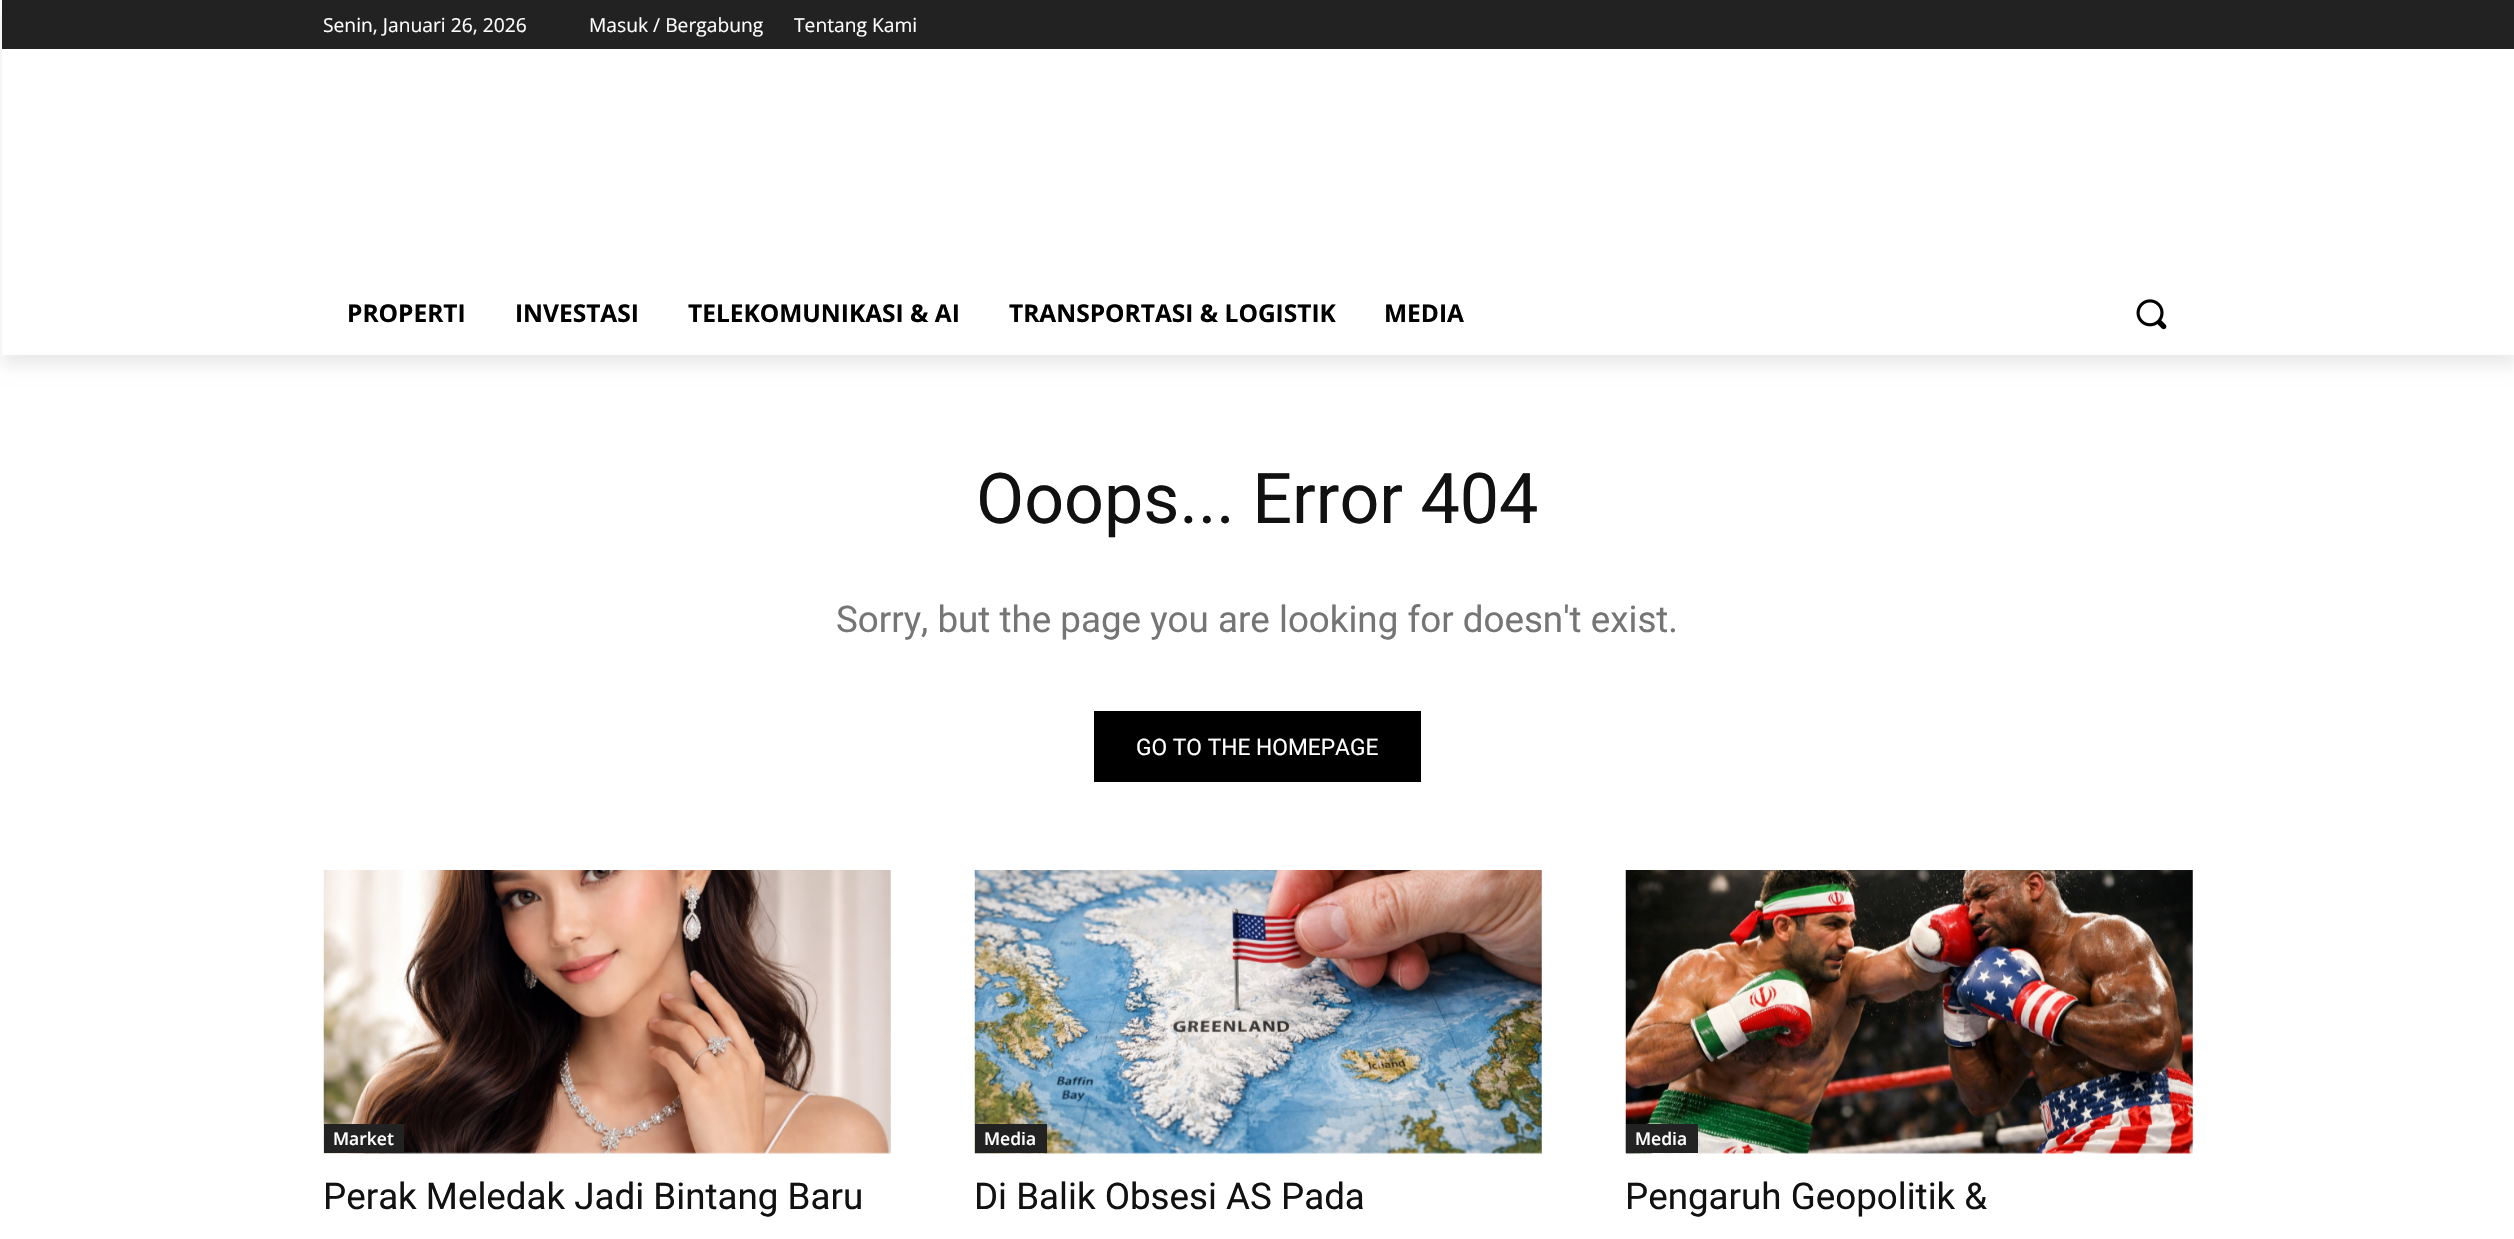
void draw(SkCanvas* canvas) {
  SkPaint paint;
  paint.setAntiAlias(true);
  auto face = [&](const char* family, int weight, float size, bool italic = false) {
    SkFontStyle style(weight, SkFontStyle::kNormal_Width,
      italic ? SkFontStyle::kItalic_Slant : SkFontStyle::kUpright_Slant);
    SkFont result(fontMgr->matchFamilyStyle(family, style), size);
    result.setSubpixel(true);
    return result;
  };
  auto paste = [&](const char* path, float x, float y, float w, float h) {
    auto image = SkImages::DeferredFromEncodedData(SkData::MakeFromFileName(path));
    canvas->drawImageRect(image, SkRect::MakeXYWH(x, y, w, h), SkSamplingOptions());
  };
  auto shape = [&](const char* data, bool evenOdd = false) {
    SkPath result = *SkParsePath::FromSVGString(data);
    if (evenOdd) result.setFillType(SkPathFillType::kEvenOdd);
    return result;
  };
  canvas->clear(0xffffffff);
  paint.setColor(0xff222222);
  canvas->drawRect(SkRect::MakeXYWH(2, 0, 2512, 49), paint);
  canvas->save();
  canvas->clipPath(shape("M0 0H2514V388H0ZM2 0H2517V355H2Z", true), true);
  paint.setColor(0x14000000);
  paint.setMaskFilter(SkMaskFilter::MakeBlur(kNormal_SkBlurStyle, 7));
  canvas->drawRect(SkRect::MakeXYWH(2, 11, 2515, 355), paint);
  paint.setMaskFilter(nullptr);
  canvas->restore();
  paste("img/1.png", 2136, 299, 31, 31);
  paint.setColor(0xff000000);
  canvas->drawRect(SkRect::MakeXYWH(1094, 711, 327, 71), paint);
  paste("img/2.png", 323, 870, 568, 284);
  paint.setColor(0xff222222);
  canvas->drawRect(SkRect::MakeXYWH(324, 1124, 80, 29), paint);
  paste("img/3.png", 974, 870, 568, 284);
  canvas->drawRect(SkRect::MakeXYWH(975, 1124, 72, 29), paint);
  paste("img/4.png", 1625, 870, 568, 284);
  canvas->drawRect(SkRect::MakeXYWH(1626, 1124, 72, 29), paint);
  auto f0 = face("Open Sans", 400, 19.25f);
  paint.setColor(0xffffffff);
  {
    const struct { const char* s; float x, y; } items[] = {
      {"Senin, Januari 26, 2026", 323, 32},
      {"Masuk / Bergabung", 589, 32},
      {"Tentang Kami", 794, 32},
    };
    for (auto [s, x, y] : items) {
      canvas->drawString(s, x, y, f0, paint);
    }
  }
  auto f1 = face("Open Sans", 700, 24.5f);
  paint.setColor(0xff000000);
  {
    const struct { const char* s; float x, y; } items[] = {
      {"PROPERTI", 347, 322},
      {"INVESTASI", 515, 322},
      {"TELEKOMUNIKASI & AI", 688, 322},
      {"TRANSPORTASI & LOGISTIK", 1009, 322},
      {"MEDIA", 1384, 322},
    };
    for (auto [s, x, y] : items) {
      canvas->drawString(s, x, y, f1, paint);
    }
  }
  auto f2 = face("Roboto", 400, 70);
  paint.setColor(0xff111111);
  canvas->drawString("Ooops... Error 404", 976, 523, f2, paint);
  auto f3 = face("Roboto", 400, 36.75f);
  paint.setColor(0xff757575);
  canvas->drawString("Sorry, but the page you are looking for doesn't exist.", 836, 632, f3, paint);
  auto f4 = face("Roboto", 400, 22.75f);
  paint.setColor(0xffffffff);
  canvas->drawString("GO TO THE HOMEPAGE", 1136, 755, f4, paint);
  auto f5 = face("Open Sans", 600, 17.5f);
  canvas->drawString("Market", 333, 1145, f5, paint);
  paint.setColor(0xff111111);
  canvas->drawString("Perak Meledak Jadi Bintang Baru", 323, 1209, f3, paint);
  paint.setColor(0xffffffff);
  canvas->drawString("Media", 984, 1145, f5, paint);
  paint.setColor(0xff111111);
  canvas->drawString("Di Balik Obsesi AS Pada", 974, 1209, f3, paint);
  paint.setColor(0xffffffff);
  canvas->drawString("Media", 1635, 1145, f5, paint);
  paint.setColor(0xff111111);
  canvas->drawString("Pengaruh Geopolitik &", 1625, 1209, f3, paint);
}
